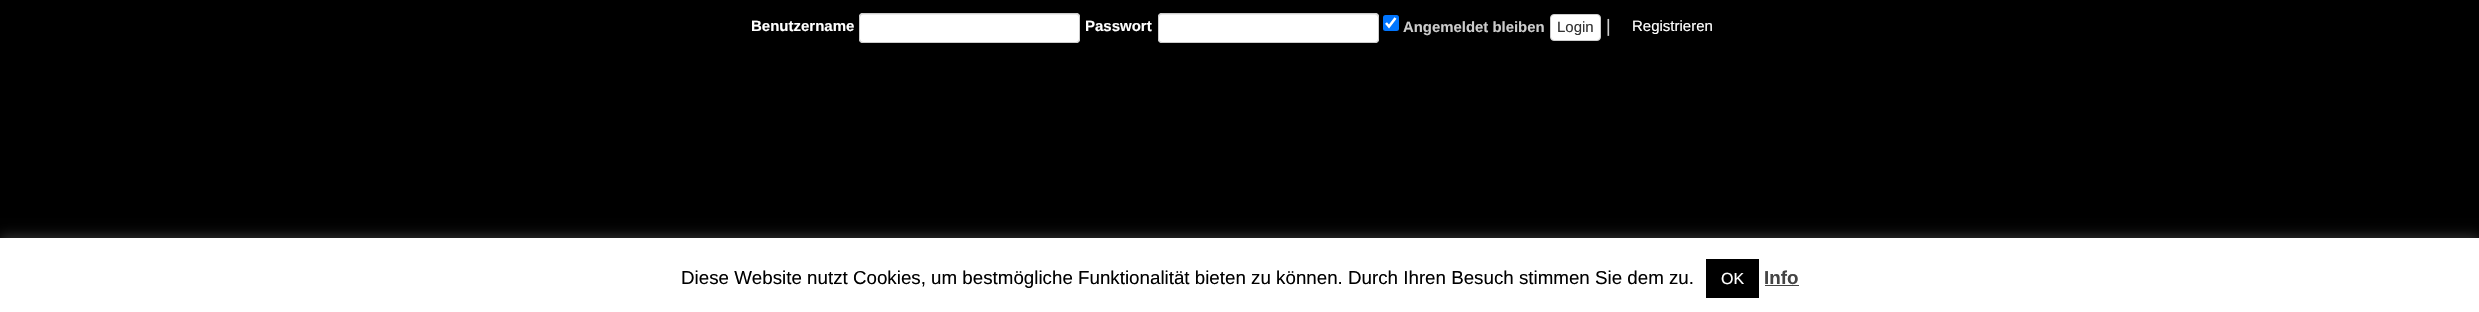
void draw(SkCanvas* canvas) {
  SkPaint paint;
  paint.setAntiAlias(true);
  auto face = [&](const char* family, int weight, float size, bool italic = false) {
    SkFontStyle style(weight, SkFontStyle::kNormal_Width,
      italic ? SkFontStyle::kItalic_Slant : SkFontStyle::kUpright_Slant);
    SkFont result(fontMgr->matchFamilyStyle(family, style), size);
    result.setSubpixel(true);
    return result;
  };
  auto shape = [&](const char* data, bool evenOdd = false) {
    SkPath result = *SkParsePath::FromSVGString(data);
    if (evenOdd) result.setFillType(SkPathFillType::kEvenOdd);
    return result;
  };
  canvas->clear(0xff000000);
  paint.setColor(0xffffffff);
  canvas->drawRoundRect(SkRect::MakeXYWH(859, 13, 221, 30), 4, 4, paint);
  paint.setColor(0xffececec);
  canvas->drawPath(shape("M862 15H1076C1078 15 1079 16 1079 18V16C1079 15 1078 14 1076 14H862C861 14 860 15 860 16V18C860 16 861 15 862 15Z"), paint);
  paint.setStroke(true);
  paint.setStrokeWidth(1);
  paint.setColor(0xffcccccc);
  canvas->drawRoundRect(SkRect::MakeXYWH(859.5f, 13.5f, 220, 29), 3.5f, 3.5f, paint);
  paint.setStroke(false);
  paint.setColor(0xffffffff);
  canvas->drawRoundRect(SkRect::MakeXYWH(1158, 13, 221, 30), 4, 4, paint);
  paint.setColor(0xffececec);
  canvas->drawPath(shape("M1161 15H1375C1376 15 1378 16 1378 18V16C1378 15 1377 14 1376 14H1162C1160 14 1159 15 1159 16V18C1159 16 1160 15 1161 15Z"), paint);
  paint.setStroke(true);
  paint.setColor(0xffcccccc);
  canvas->drawRoundRect(SkRect::MakeXYWH(1158.5f, 13.5f, 220, 29), 3.5f, 3.5f, paint);
  paint.setStroke(false);
  paint.setColor(0xff0075ff);
  canvas->drawRoundRect(SkRect::MakeXYWH(1383, 15, 16, 16), 2.5f, 2.5f, paint);
  paint.setStroke(true);
  paint.setStrokeWidth(2.6f);
  paint.setColor(0xffffffff);
  canvas->drawPath(shape("M1386 23L1389 26.5L1395.5 18"), paint);
  paint.setStroke(false);
  canvas->drawRoundRect(SkRect::MakeXYWH(1550.5f, 14.5f, 50, 26), 3.5f, 3.5f, paint);
  paint.setStroke(true);
  paint.setStrokeWidth(1);
  paint.setColor(0xffcccccc);
  canvas->drawRoundRect(SkRect::MakeXYWH(1550.5f, 14.5f, 50, 26), 3.5f, 3.5f, paint);
  paint.setStroke(false);
  paint.setColor(0x4dacabab);
  paint.setMaskFilter(SkMaskFilter::MakeBlur(kNormal_SkBlurStyle, 6));
  canvas->drawRect(SkRect::MakeXYWH(0, 236, 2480, 75), paint);
  paint.setMaskFilter(nullptr);
  {
    const struct { float x, y, w, h; SkColor color; } items[] = {
      {0, 238, 2479, 74, 0xffffffff},
      {1706, 259, 53, 39, 0xff000000},
      {1765, 285, 34, 1, 0xff444444},
    };
    for (auto [x, y, w, h, color] : items) {
      paint.setColor(color);
      canvas->drawRect(SkRect::MakeXYWH(x, y, w, h), paint);
    }
  }
  auto f0 = face("Liberation Sans", 700, 15);
  paint.setColor(0xffffffff);
  canvas->drawString("Benutzername", 751, 31, f0, paint);
  canvas->drawString("Passwort", 1085, 31, f0, paint);
  auto f1 = face("Liberation Sans", 700, 14.9f);
  paint.setColor(0xffcccccc);
  canvas->drawString("Angemeldet bleiben", 1403, 32, f1, paint);
  auto f2 = face("Liberation Sans", 400, 15);
  paint.setColor(0xff333333);
  canvas->drawString("Login", 1557, 32, f2, paint);
  auto f3 = face("Liberation Sans", 400, 18);
  paint.setColor(0xffcccccc);
  canvas->drawString("|", 1606, 32, f3, paint);
  paint.setColor(0xffffffff);
  canvas->drawString("Registrieren", 1632, 31, f2, paint);
  auto f4 = face("Liberation Sans", 400, 18.75f);
  paint.setColor(0xff000000);
  canvas->drawString("Diese Website nutzt Cookies, um bestmögliche Funktionalität bieten zu können. Durch Ihren Besuch stimmen Sie dem zu.", 681, 284, f4, paint);
  auto f5 = face("Liberation Sans", 400, 16);
  paint.setColor(0xffffffff);
  canvas->drawString("OK", 1721, 284, f5, paint);
  auto f6 = face("Liberation Sans", 700, 18.75f);
  paint.setColor(0xff444444);
  canvas->drawString("Info", 1764, 284, f6, paint);
}
